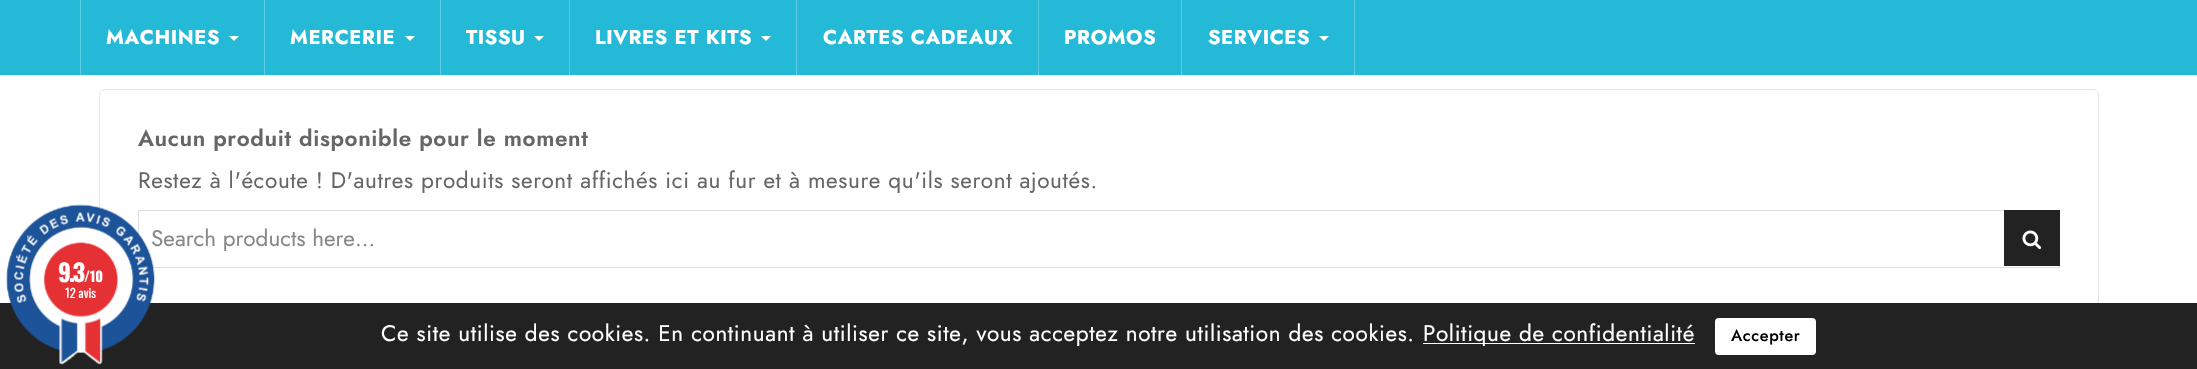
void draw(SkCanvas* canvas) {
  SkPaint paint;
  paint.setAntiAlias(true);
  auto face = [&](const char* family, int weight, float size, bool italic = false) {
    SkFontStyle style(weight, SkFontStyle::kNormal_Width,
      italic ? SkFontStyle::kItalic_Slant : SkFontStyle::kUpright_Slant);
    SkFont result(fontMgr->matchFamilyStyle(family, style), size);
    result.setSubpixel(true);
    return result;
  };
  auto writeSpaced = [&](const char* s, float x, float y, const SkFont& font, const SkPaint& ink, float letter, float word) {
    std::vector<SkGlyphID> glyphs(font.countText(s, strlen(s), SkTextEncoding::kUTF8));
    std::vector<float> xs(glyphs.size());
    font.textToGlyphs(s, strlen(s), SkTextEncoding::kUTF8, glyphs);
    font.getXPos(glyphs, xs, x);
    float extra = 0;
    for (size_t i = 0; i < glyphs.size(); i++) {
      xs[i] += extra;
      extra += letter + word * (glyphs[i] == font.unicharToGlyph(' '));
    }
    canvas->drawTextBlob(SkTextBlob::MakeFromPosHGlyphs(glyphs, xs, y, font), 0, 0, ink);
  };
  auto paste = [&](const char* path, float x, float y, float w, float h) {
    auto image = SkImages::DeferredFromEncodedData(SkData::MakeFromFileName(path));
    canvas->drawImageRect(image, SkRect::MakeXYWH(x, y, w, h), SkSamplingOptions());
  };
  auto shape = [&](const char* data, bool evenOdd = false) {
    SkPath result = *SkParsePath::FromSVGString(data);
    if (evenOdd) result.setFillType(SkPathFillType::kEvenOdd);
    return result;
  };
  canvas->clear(0xffffffff);
  {
    const struct { float x, y, w, h; SkColor color; } items[] = {
      {0, 0, 2197, 75, 0xff24b9d7},
      {264, 0, 1, 75, 0xff5dcbe1},
      {80, 0, 1, 75, 0xff5dcbe1},
    };
    for (auto [x, y, w, h, color] : items) {
      paint.setColor(color);
      canvas->drawRect(SkRect::MakeXYWH(x, y, w, h), paint);
    }
  }
  paint.setColor(0xffffffff);
  canvas->drawPath(shape("M229 36H239L234 41Z"), paint);
  paint.setColor(0xff5dcbe1);
  canvas->drawRect(SkRect::MakeXYWH(440, 0, 1, 75), paint);
  paint.setColor(0xffffffff);
  canvas->drawPath(shape("M405 36H415L410 41Z"), paint);
  paint.setColor(0xff5dcbe1);
  canvas->drawRect(SkRect::MakeXYWH(569, 0, 1, 75), paint);
  paint.setColor(0xffffffff);
  canvas->drawPath(shape("M534 36H544L539 41Z"), paint);
  paint.setColor(0xff5dcbe1);
  canvas->drawRect(SkRect::MakeXYWH(796, 0, 1, 75), paint);
  paint.setColor(0xffffffff);
  canvas->drawPath(shape("M761 36H771L766 41Z"), paint);
  {
    const struct { float x, y, w, h; SkColor color; } items[] = {
      {1038, 0, 1, 75, 0xff5dcbe1},
      {1181, 0, 1, 75, 0xff5dcbe1},
      {1354, 0, 1, 75, 0xff5dcbe1},
    };
    for (auto [x, y, w, h, color] : items) {
      paint.setColor(color);
      canvas->drawRect(SkRect::MakeXYWH(x, y, w, h), paint);
    }
  }
  paint.setColor(0xffffffff);
  canvas->drawPath(shape("M1319 36H1329L1324 41Z"), paint);
  paint.setStroke(true);
  paint.setStrokeWidth(1);
  paint.setColor(0xffe5e5e5);
  canvas->drawRoundRect(SkRect::MakeXYWH(99.5f, 89.5f, 1999, 216), 5.5f, 5.5f, paint);
  paint.setColor(0xffdddddd);
  canvas->drawRect(SkRect::MakeXYWH(138.5f, 210.5f, 1921, 57), paint);
  paint.setStroke(false);
  paint.setColor(0xff222222);
  canvas->drawRect(SkRect::MakeXYWH(2004, 210, 56, 56), paint);
  paste("img/2.png", 2022, 230, 20, 20);
  canvas->drawRect(SkRect::MakeXYWH(0, 303, 2197, 66), paint);
  paint.setColor(0xffffffff);
  canvas->drawRect(SkRect::MakeXYWH(1423, 343, 272, 1), paint);
  canvas->drawRoundRect(SkRect::MakeXYWH(1715, 318, 101, 37), 4, 4, paint);
  auto f0 = face("Jost", 700, 20);
  {
    const struct { const char* s; float x, y; } items[] = {
      {"MACHINES", 106, 44},
      {"MERCERIE", 290, 44},
      {"TISSU", 466, 44},
      {"LIVRES ET KITS", 595, 44},
      {"CARTES CADEAUX", 823, 44},
      {"PROMOS", 1064, 44},
      {"SERVICES", 1208, 44},
    };
    for (auto [s, x, y] : items) {
      writeSpaced(s, x, y, f0, paint, 0.62f, 0);
    }
  }
  auto f1 = face("Jost", 600, 22.5f);
  paint.setColor(0xff666666);
  writeSpaced("Aucun produit disponible pour le moment", 138, 146, f1, paint, 0.62f, 0);
  auto f2 = face("Jost", 400, 22.5f);
  writeSpaced("Restez à l'écoute ! D'autres produits seront affichés ici au fur et à mesure qu'ils seront ajoutés.", 138, 188, f2, paint, 0.62f, 0);
  paint.setColor(0xff888888);
  canvas->drawString("Search products here...", 151, 246, f2, paint);
  paste("img/1.png", 6, 204, 149, 161);
  auto f3 = face("Oswald", 400, 12.5f);
  paint.setColor(0xffffffff);
  canvas->drawString("12 avis", 65, 298, f3, paint);
  auto f4 = face("Oswald", 700, 24);
  writeSpaced("9.3", 58, 282, f4, paint, -2, 0);
  auto f5 = face("Oswald", 700, 14);
  canvas->drawString("/10", 84, 282, f5, paint);
  writeSpaced("Ce site utilise des cookies. En continuant à utiliser ce site, vous acceptez notre utilisation des cookies.", 381, 341, f2, paint, 0.62f, 0);
  writeSpaced("Politique de confidentialité", 1423, 341, f2, paint, 0.62f, 0);
  auto f6 = face("Jost", 500, 16.25f);
  paint.setColor(0xff000000);
  writeSpaced("Accepter", 1731, 341, f6, paint, 0.62f, 0);
}
